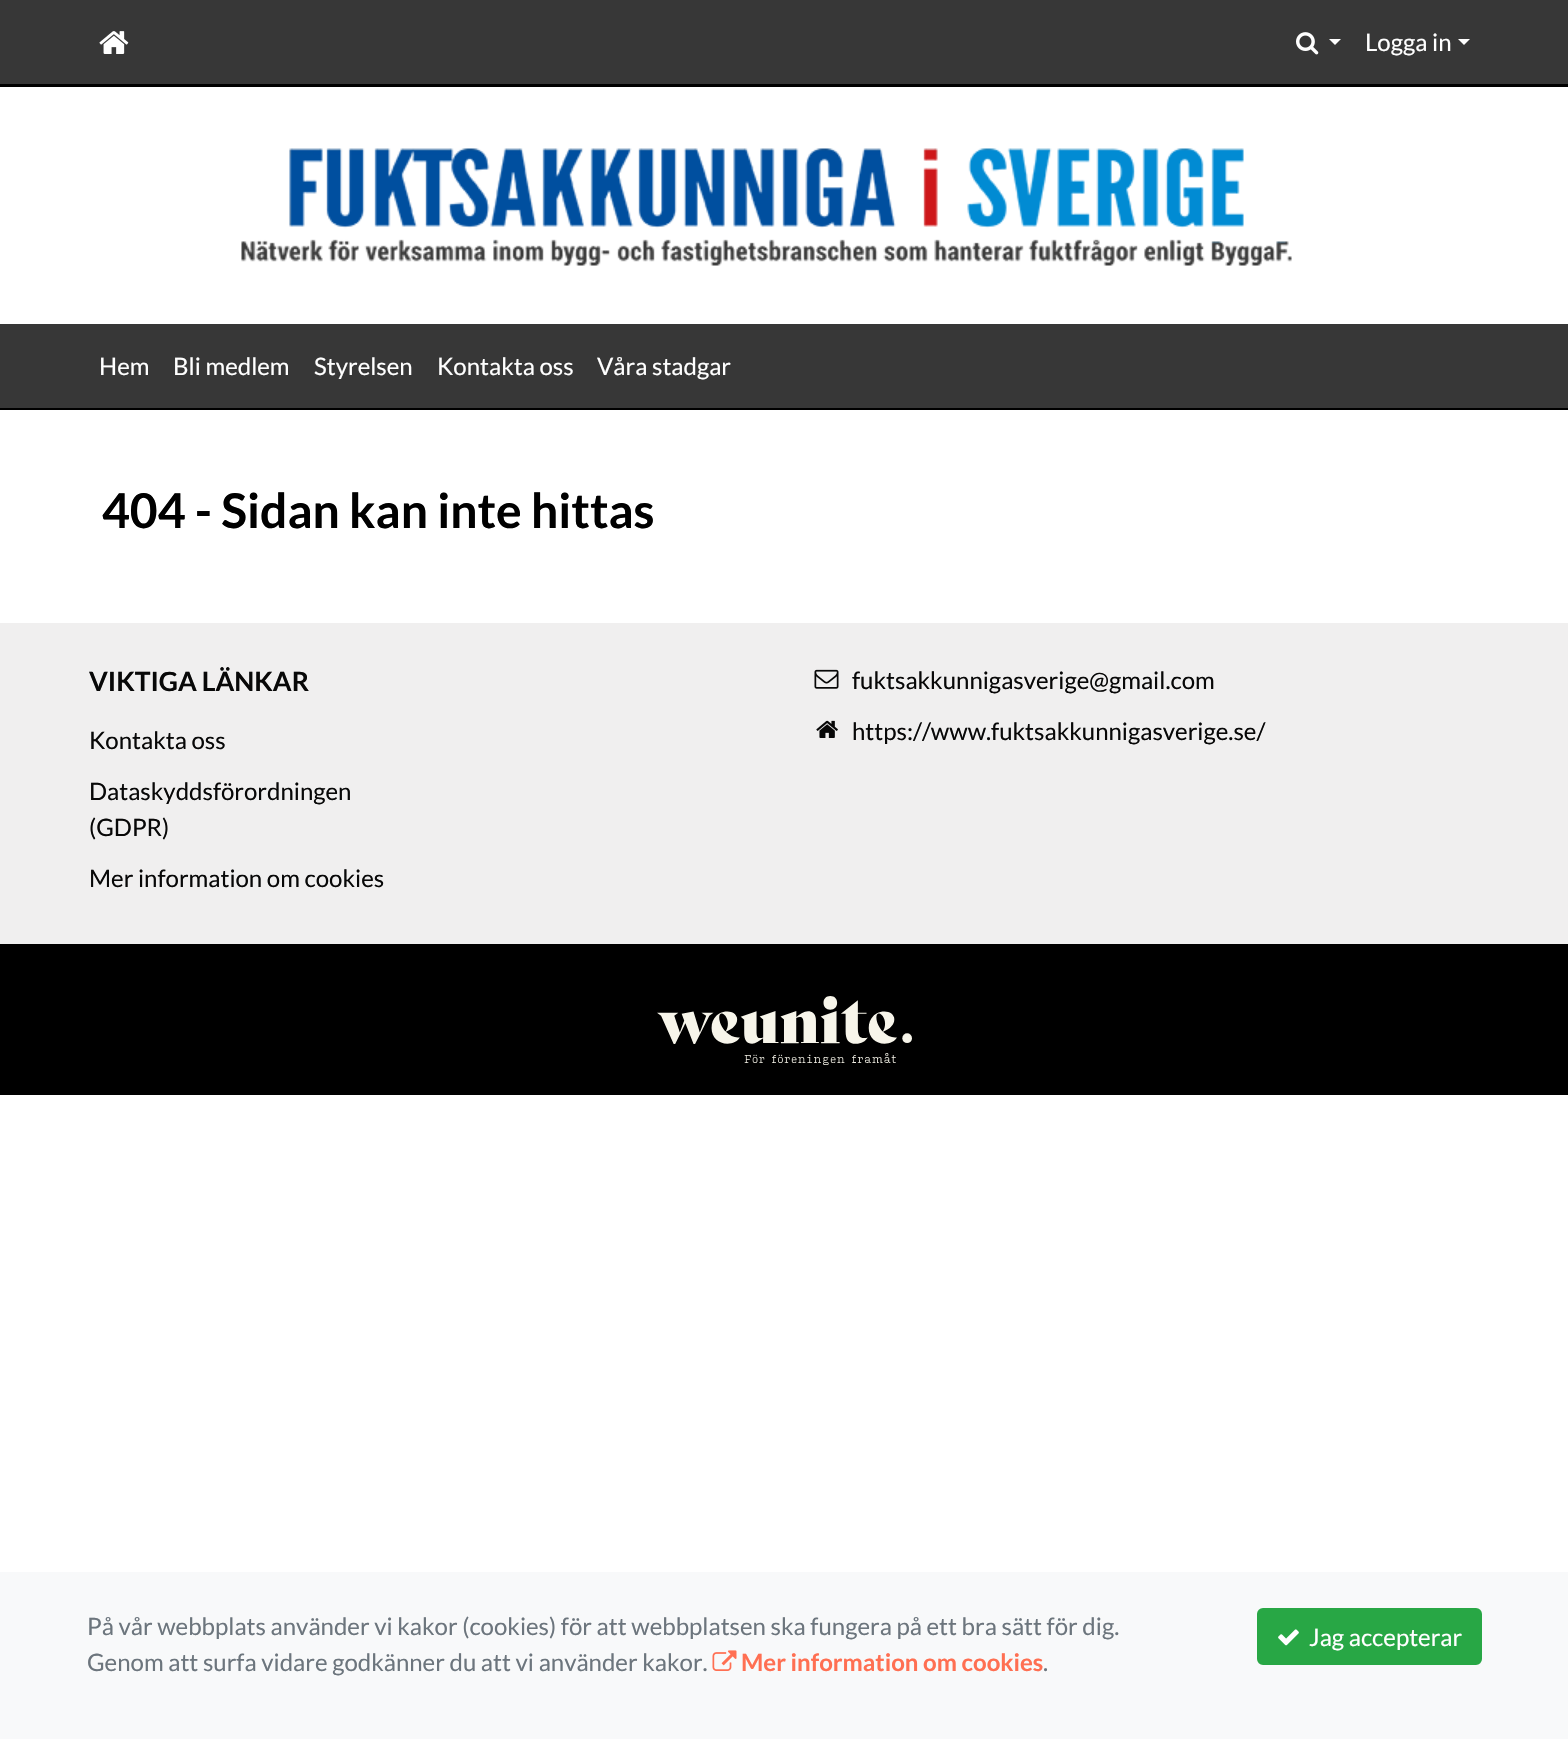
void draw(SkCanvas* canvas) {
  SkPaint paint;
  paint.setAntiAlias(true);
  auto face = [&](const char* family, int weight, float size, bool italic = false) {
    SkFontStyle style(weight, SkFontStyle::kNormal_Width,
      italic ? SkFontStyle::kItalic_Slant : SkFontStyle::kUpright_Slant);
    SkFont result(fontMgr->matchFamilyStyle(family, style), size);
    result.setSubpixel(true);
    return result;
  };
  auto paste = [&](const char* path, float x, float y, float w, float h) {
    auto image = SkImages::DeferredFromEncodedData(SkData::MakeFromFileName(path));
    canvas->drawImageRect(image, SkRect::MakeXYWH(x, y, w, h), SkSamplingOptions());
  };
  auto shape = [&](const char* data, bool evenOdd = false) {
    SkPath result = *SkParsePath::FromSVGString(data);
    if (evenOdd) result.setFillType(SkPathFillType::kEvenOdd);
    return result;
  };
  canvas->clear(0xffffffff);
  paint.setColor(0xff373737);
  canvas->drawRect(SkRect::MakeXYWH(0, 0, 1568, 84), paint);
  paint.setColor(0xff000000);
  canvas->drawRect(SkRect::MakeXYWH(0, 84, 1568, 3), paint);
  paste("img/1.png", 99, 31, 30, 23);
  paste("img/2.png", 1296, 32, 23, 23);
  paint.setColor(0xffffffff);
  canvas->drawPath(shape("M1329 39H1341L1335 45Z"), paint);
  canvas->drawPath(shape("M1458 39H1470L1464 45Z"), paint);
  paste("img/3.png", 241, 148, 1051, 118);
  {
    const struct { float x, y, w, h; SkColor color; } items[] = {
      {0, 324, 1568, 84, 0xff373737},
      {0, 408, 1568, 2, 0xff000000},
      {0, 623, 1568, 321, 0xfff0efef},
    };
    for (auto [x, y, w, h, color] : items) {
      paint.setColor(color);
      canvas->drawRect(SkRect::MakeXYWH(x, y, w, h), paint);
    }
  }
  paste("img/4.png", 814, 669, 25, 20);
  paste("img/5.png", 816, 720, 22, 18);
  paint.setColor(0xff000000);
  canvas->drawRect(SkRect::MakeXYWH(0, 944, 1568, 151), paint);
  paste("img/6.png", 657, 996, 255, 69);
  paint.setColor(0xfff8f9fa);
  canvas->drawRect(SkRect::MakeXYWH(0, 1572, 1568, 167), paint);
  paste("img/7.png", 712, 1650, 25, 21);
  paint.setColor(0xff28a745);
  canvas->drawRoundRect(SkRect::MakeXYWH(1258, 1609, 223, 55), 5, 5, paint);
  paint.setStroke(true);
  paint.setStrokeWidth(2);
  canvas->drawRoundRect(SkRect::MakeXYWH(1258, 1609, 223, 55), 5, 5, paint);
  paste("img/8.png", 1278, 1629, 21, 17);
  auto f0 = face("Lato", 400, 24);
  paint.setStroke(false);
  paint.setColor(0xffffffff);
  {
    const struct { const char* s; float x, y; } items[] = {
      {"Logga in", 1365, 51},
      {"Hem", 99, 375},
      {"Bli medlem", 173, 375},
      {"Styrelsen", 314, 375},
      {"Kontakta oss", 437, 375},
      {"Våra stadgar", 597, 375},
    };
    for (auto [s, x, y] : items) {
      canvas->drawString(s, x, y, f0, paint);
    }
  }
  auto f1 = face("Lato", 700, 48);
  paint.setColor(0xff000000);
  canvas->drawString("404 - Sidan kan inte hittas", 102, 528, f1, paint);
  auto f2 = face("Lato", 700, 26.5f);
  paint.setColor(0xff080808);
  canvas->drawString("VIKTIGA LÄNKAR", 89, 691, f2, paint);
  {
    const struct { const char* s; float x, y; } items[] = {
      {"Kontakta oss", 89, 749},
      {"Dataskyddsförordningen", 89, 800},
      {"(GDPR)", 89, 836},
      {"Mer information om cookies", 89, 887},
      {"fuktsakkunnigasverige@gmail.com", 852, 689},
      {"https://www.fuktsakkunnigasverige.se/", 852, 740},
    };
    for (auto [s, x, y] : items) {
      canvas->drawString(s, x, y, f0, paint);
    }
  }
  paint.setColor(0xff6c757d);
  canvas->drawString("På vår webbplats använder vi kakor (cookies) för att webbplatsen ska fungera på ett bra sätt för dig.", 87, 1635, f0, paint);
  canvas->drawString("Genom att surfa vidare godkänner du att vi använder kakor.", 87, 1671, f0, paint);
  auto f3 = face("Lato", 700, 24);
  paint.setColor(0xffff6f52);
  canvas->drawString("Mer information om cookies", 741, 1671, f3, paint);
  paint.setColor(0xff6c757d);
  canvas->drawString(".", 1043, 1671, f0, paint);
  paint.setColor(0xffffffff);
  canvas->drawString("Jag accepterar", 1309, 1646, f0, paint);
}
